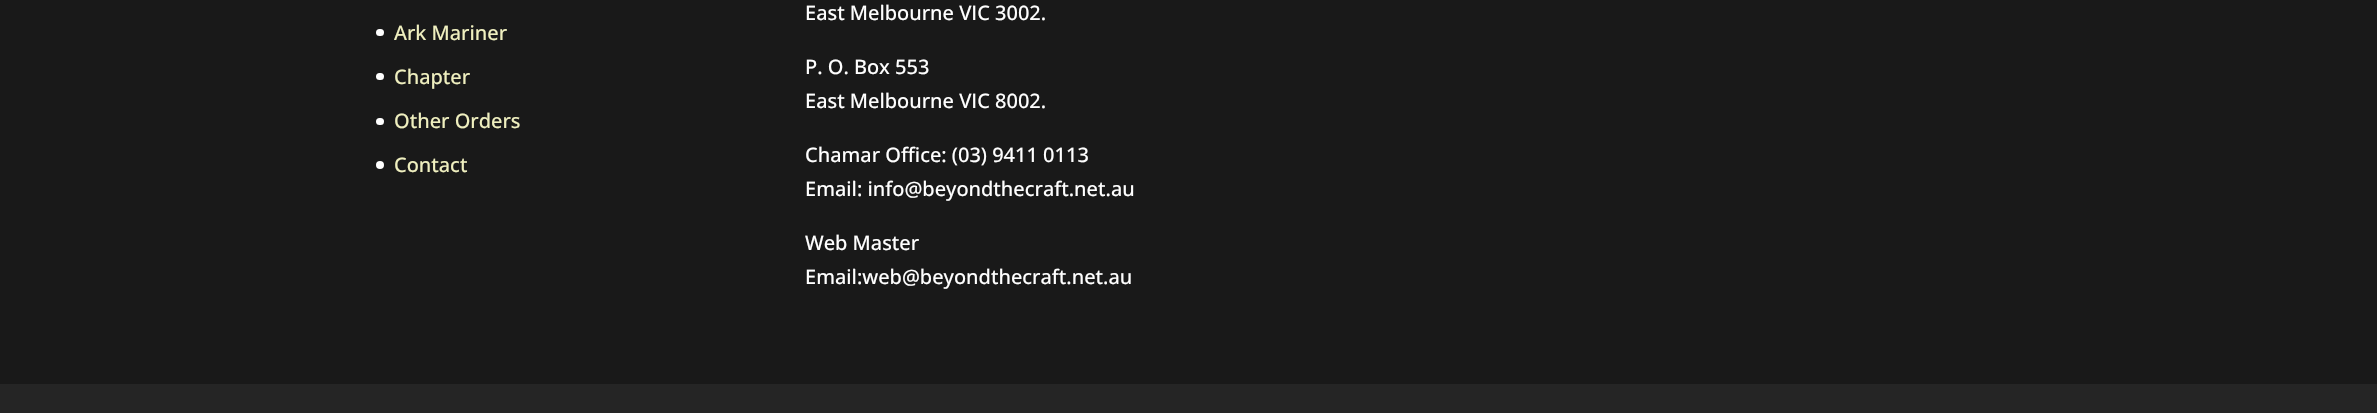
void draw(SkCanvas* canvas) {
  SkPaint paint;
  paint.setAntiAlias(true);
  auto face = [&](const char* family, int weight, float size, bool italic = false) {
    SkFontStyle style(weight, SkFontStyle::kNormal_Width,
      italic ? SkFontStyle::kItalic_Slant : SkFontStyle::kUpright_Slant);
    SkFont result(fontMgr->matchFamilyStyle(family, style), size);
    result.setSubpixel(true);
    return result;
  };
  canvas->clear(0xff191919);
  paint.setColor(0xffffffff);
  canvas->drawRoundRect(SkRect::MakeXYWH(376, 29, 8, 7), 3.5f, 3.5f, paint);
  canvas->drawRoundRect(SkRect::MakeXYWH(376, 73, 8, 7), 3.5f, 3.5f, paint);
  canvas->drawRoundRect(SkRect::MakeXYWH(376, 118, 8, 7), 3.5f, 3.5f, paint);
  canvas->drawCircle(380, 165, 4, paint);
  paint.setColor(0xff252525);
  canvas->drawRect(SkRect::MakeXYWH(0, 384, 2377, 29), paint);
  auto f0 = face("Open Sans", 500, 20);
  paint.setColor(0xffefefbf);
  {
    const struct { const char* s; float x, y; } items[] = {
      {"Ark Mariner", 394, 40},
      {"Chapter", 394, 84},
      {"Other Orders", 394, 128},
      {"Contact", 394, 172},
    };
    for (auto [s, x, y] : items) {
      canvas->drawString(s, x, y, f0, paint);
    }
  }
  paint.setColor(0xffffffff);
  {
    const struct { const char* s; float x, y; } items[] = {
      {"East Melbourne VIC 3002.", 805, 20},
      {"P. O. Box 553", 805, 74},
      {"East Melbourne VIC 8002.", 805, 108},
      {"Chamar Office: (03) 9411 0113", 805, 162},
      {"Email: info@beyondthecraft.net.au", 805, 196},
      {"Web Master", 805, 250},
      {"Email:web@beyondthecraft.net.au", 805, 284},
    };
    for (auto [s, x, y] : items) {
      canvas->drawString(s, x, y, f0, paint);
    }
  }
}
